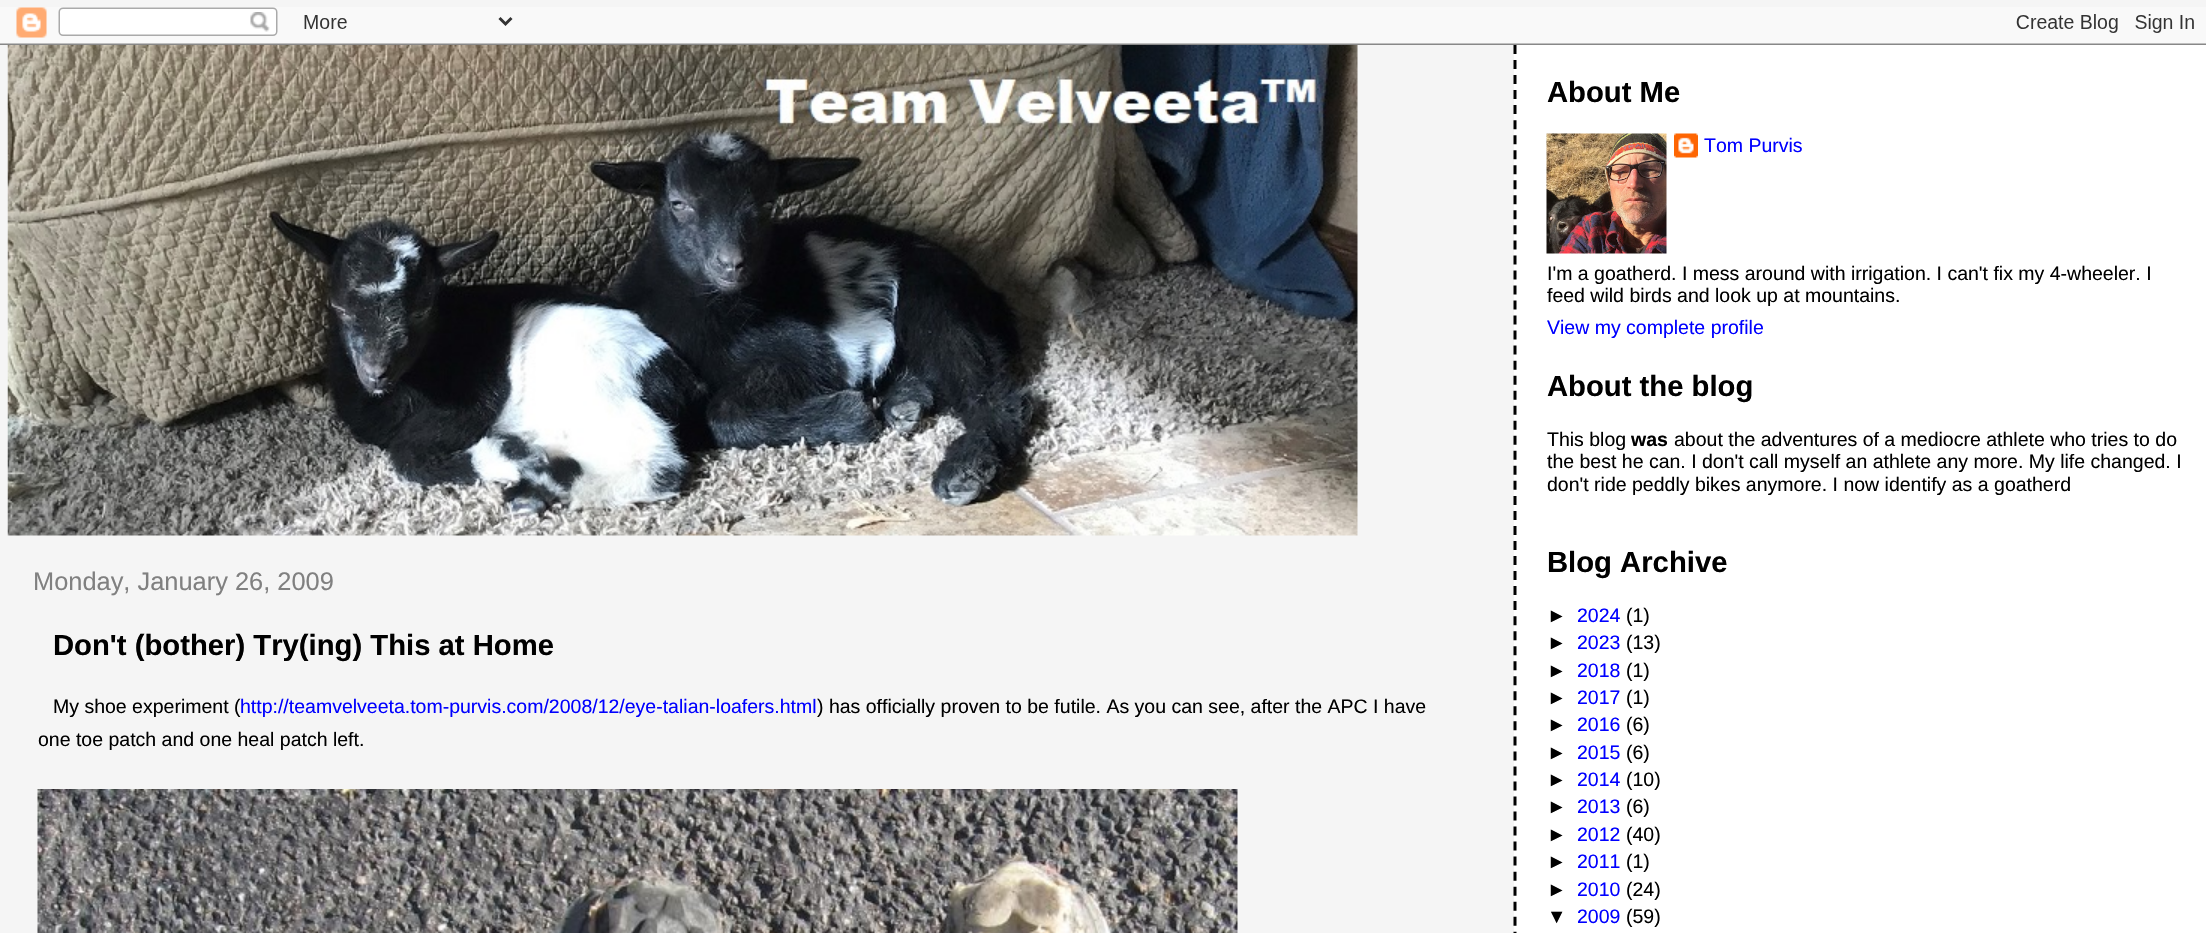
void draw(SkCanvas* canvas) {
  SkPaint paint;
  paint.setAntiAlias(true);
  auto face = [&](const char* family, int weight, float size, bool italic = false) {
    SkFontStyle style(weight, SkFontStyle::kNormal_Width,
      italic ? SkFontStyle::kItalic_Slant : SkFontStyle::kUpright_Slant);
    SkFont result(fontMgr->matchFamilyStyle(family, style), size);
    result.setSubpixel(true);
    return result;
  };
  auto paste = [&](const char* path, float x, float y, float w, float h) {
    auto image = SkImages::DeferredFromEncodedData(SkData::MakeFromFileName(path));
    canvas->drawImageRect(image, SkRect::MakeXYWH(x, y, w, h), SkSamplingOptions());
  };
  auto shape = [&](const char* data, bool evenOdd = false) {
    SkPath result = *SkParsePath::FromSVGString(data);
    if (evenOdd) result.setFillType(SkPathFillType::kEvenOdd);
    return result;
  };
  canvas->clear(0xfff5f5f5);
  paste("img/1.png", 0, 7, 2206, 38);
  paste("img/2.png", 7, 45, 1351, 491);
  paste("img/3.png", 37, 789, 1201, 144);
  paint.setColor(0xffffffff);
  canvas->drawRect(SkRect::MakeXYWH(1514, 45, 692, 888), paint);
  paint.setStroke(true);
  paint.setStrokeWidth(3);
  paint.setColor(0xff000000);
  paint.setPathEffect(SkDashPathEffect::Make({{9, 6.03f}}, 0));
  canvas->drawPath(shape("M1515 45V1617"), paint);
  paint.setPathEffect(nullptr);
  paste("img/4.png", 1546, 133, 121, 121);
  paste("img/5.png", 1674, 133, 24, 25);
  auto f0 = face("Liberation Sans", 400, 25.4f);
  paint.setStroke(false);
  paint.setColor(0xff808080);
  canvas->drawString("Monday, January 26, 2009", 33, 590, f0, paint);
  auto f1 = face("Liberation Sans", 700, 29.25f);
  paint.setColor(0xff000000);
  canvas->drawString("Don't (bother) Try(ing) This at Home", 53, 655, f1, paint);
  auto f2 = face("Liberation Sans", 400, 19.5f);
  canvas->drawString("My shoe experiment (", 53, 713, f2, paint);
  paint.setColor(0xff0000ff);
  canvas->drawString("http://teamvelveeta.tom-purvis.com/2008/12/eye-talian-loafers.html", 240, 713, f2, paint);
  paint.setColor(0xff000000);
  canvas->drawString(") has officially proven to be futile. As you can see, after the APC I have", 817, 713, f2, paint);
  canvas->drawString("one toe patch and one heal patch left.", 38, 746, f2, paint);
  canvas->drawString("About Me", 1547, 102, f1, paint);
  paint.setColor(0xff0000ff);
  canvas->drawString("Tom Purvis", 1704, 152, f2, paint);
  paint.setColor(0xff000000);
  canvas->drawString("I'm a goatherd. I mess around with irrigation. I can't fix my 4-wheeler. I", 1547, 280, f2, paint);
  canvas->drawString("feed wild birds and look up at mountains.", 1547, 302, f2, paint);
  paint.setColor(0xff0000ff);
  canvas->drawString("View my complete profile", 1547, 334, f2, paint);
  paint.setColor(0xff000000);
  canvas->drawString("About the blog", 1547, 396, f1, paint);
  canvas->drawString("This blog", 1547, 446, f2, paint);
  auto f3 = face("Liberation Sans", 700, 19.5f);
  canvas->drawString("was", 1631, 446, f3, paint);
  {
    const struct { const char* s; float x, y; } items[] = {
      {"about the adventures of a mediocre athlete who tries to do", 1674, 446},
      {"the best he can. I don't call myself an athlete any more. My life changed. I", 1547, 468},
      {"don't ride peddly bikes anymore. I now identify as a goatherd", 1547, 491},
    };
    for (auto [s, x, y] : items) {
      canvas->drawString(s, x, y, f2, paint);
    }
  }
  canvas->drawString("Blog Archive", 1547, 572, f1, paint);
  canvas->drawString("►", 1547, 622, f2, paint);
  paint.setColor(0xff0000ff);
  canvas->drawString("2024", 1577, 622, f2, paint);
  paint.setColor(0xff000000);
  canvas->drawString("(1)", 1626, 622, f2, paint);
  canvas->drawString("►", 1547, 649, f2, paint);
  paint.setColor(0xff0000ff);
  canvas->drawString("2023", 1577, 649, f2, paint);
  paint.setColor(0xff000000);
  canvas->drawString("(13)", 1626, 649, f2, paint);
  canvas->drawString("►", 1547, 677, f2, paint);
  paint.setColor(0xff0000ff);
  canvas->drawString("2018", 1577, 677, f2, paint);
  paint.setColor(0xff000000);
  canvas->drawString("(1)", 1626, 677, f2, paint);
  canvas->drawString("►", 1547, 704, f2, paint);
  paint.setColor(0xff0000ff);
  canvas->drawString("2017", 1577, 704, f2, paint);
  paint.setColor(0xff000000);
  canvas->drawString("(1)", 1626, 704, f2, paint);
  canvas->drawString("►", 1547, 731, f2, paint);
  paint.setColor(0xff0000ff);
  canvas->drawString("2016", 1577, 731, f2, paint);
  paint.setColor(0xff000000);
  canvas->drawString("(6)", 1626, 731, f2, paint);
  canvas->drawString("►", 1547, 759, f2, paint);
  paint.setColor(0xff0000ff);
  canvas->drawString("2015", 1577, 759, f2, paint);
  paint.setColor(0xff000000);
  canvas->drawString("(6)", 1626, 759, f2, paint);
  canvas->drawString("►", 1547, 786, f2, paint);
  paint.setColor(0xff0000ff);
  canvas->drawString("2014", 1577, 786, f2, paint);
  paint.setColor(0xff000000);
  canvas->drawString("(10)", 1626, 786, f2, paint);
  canvas->drawString("►", 1547, 813, f2, paint);
  paint.setColor(0xff0000ff);
  canvas->drawString("2013", 1577, 813, f2, paint);
  paint.setColor(0xff000000);
  canvas->drawString("(6)", 1626, 813, f2, paint);
  canvas->drawString("►", 1547, 841, f2, paint);
  paint.setColor(0xff0000ff);
  canvas->drawString("2012", 1577, 841, f2, paint);
  paint.setColor(0xff000000);
  canvas->drawString("(40)", 1626, 841, f2, paint);
  canvas->drawString("►", 1547, 868, f2, paint);
  paint.setColor(0xff0000ff);
  canvas->drawString("2011", 1577, 868, f2, paint);
  paint.setColor(0xff000000);
  canvas->drawString("(1)", 1626, 868, f2, paint);
  canvas->drawString("►", 1547, 896, f2, paint);
  paint.setColor(0xff0000ff);
  canvas->drawString("2010", 1577, 896, f2, paint);
  paint.setColor(0xff000000);
  canvas->drawString("(24)", 1626, 896, f2, paint);
  canvas->drawString("▼", 1547, 923, f2, paint);
  paint.setColor(0xff0000ff);
  canvas->drawString("2009", 1577, 923, f2, paint);
  paint.setColor(0xff000000);
  canvas->drawString("(59)", 1626, 923, f2, paint);
}
